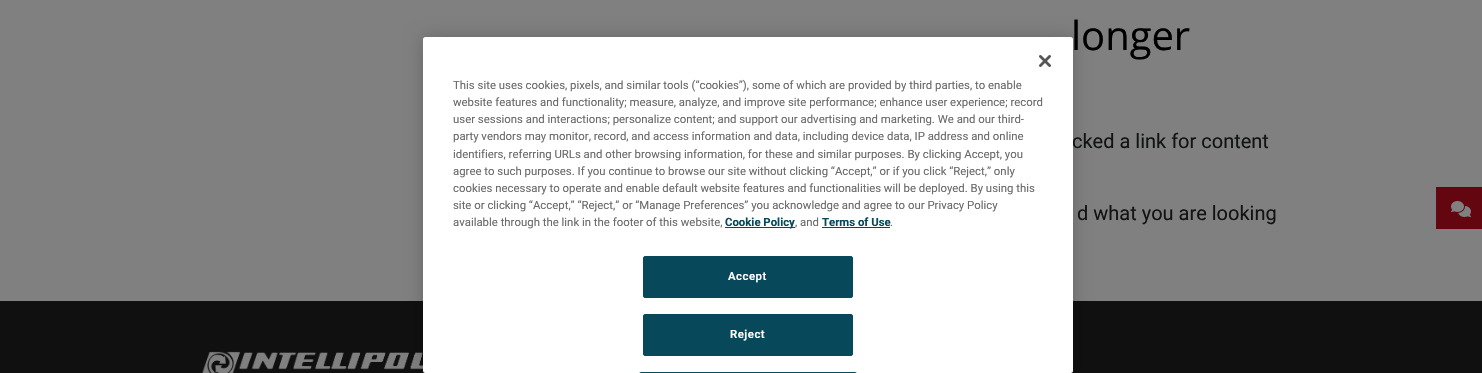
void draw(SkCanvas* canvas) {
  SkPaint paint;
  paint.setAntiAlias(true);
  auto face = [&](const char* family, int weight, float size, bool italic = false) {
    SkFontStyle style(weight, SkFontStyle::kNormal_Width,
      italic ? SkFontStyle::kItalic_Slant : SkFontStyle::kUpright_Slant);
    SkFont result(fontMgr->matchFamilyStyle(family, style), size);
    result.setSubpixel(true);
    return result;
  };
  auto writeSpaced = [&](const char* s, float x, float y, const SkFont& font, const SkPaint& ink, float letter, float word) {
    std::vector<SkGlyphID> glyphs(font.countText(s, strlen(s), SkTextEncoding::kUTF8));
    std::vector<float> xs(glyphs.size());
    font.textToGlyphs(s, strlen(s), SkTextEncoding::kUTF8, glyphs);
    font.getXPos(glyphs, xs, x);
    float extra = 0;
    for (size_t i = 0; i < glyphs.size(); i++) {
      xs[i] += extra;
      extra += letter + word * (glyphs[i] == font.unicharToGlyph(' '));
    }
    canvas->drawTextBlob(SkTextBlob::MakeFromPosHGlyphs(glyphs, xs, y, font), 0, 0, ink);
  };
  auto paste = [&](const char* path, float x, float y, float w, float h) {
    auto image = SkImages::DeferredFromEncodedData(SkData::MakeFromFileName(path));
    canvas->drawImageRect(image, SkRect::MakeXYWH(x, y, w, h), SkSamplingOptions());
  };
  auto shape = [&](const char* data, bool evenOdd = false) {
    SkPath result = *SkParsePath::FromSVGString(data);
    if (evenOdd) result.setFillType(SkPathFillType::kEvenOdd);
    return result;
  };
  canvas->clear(0xff808080);
  paint.setColor(0xff101010);
  canvas->drawRect(SkRect::MakeXYWH(0, 301, 1482, 72), paint);
  paste("img/3.png", 202, 351, 221, 22);
  paint.setColor(0x33000000);
  paint.setMaskFilter(SkMaskFilter::MakeBlur(kNormal_SkBlurStyle, 9));
  canvas->drawRoundRect(SkRect::MakeXYWH(423, 37, 650, 336), 2.5f, 2.5f, paint);
  paint.setMaskFilter(nullptr);
  paint.setColor(0xff630610);
  canvas->drawRect(SkRect::MakeXYWH(1436, 187, 46, 42), paint);
  paste("img/2.png", 1451, 201, 20, 16);
  auto f0 = face("Open Sans", 400, 40);
  paint.setColor(0xff000000);
  canvas->drawString("longer", 1071, 50, f0, paint);
  auto f1 = face("Roboto", 400, 20);
  paint.setColor(0xff111315);
  canvas->drawString("cked a link for content", 1072, 148, f1, paint);
  paint.setColor(0xffffffff);
  canvas->drawRoundRect(SkRect::MakeXYWH(423, 37, 650, 336), 2.5f, 2.5f, paint);
  paste("img/1.png", 1039, 55, 12, 12);
  paint.setColor(0xff07485b);
  canvas->drawRoundRect(SkRect::MakeXYWH(643.5f, 256.5f, 209, 41), 1.5f, 1.5f, paint);
  paint.setStroke(true);
  paint.setStrokeWidth(1);
  canvas->drawRoundRect(SkRect::MakeXYWH(643.5f, 256.5f, 209, 41), 1.5f, 1.5f, paint);
  auto f2 = face("Roboto", 600, 11.38f);
  paint.setStroke(false);
  paint.setColor(0xffffffff);
  writeSpaced("Accept", 728, 280, f2, paint, 0.5f, 0);
  paint.setColor(0xff07485b);
  canvas->drawRoundRect(SkRect::MakeXYWH(643.5f, 314.5f, 209, 41), 1.5f, 1.5f, paint);
  paint.setStroke(true);
  canvas->drawRoundRect(SkRect::MakeXYWH(643.5f, 314.5f, 209, 41), 1.5f, 1.5f, paint);
  paint.setStroke(false);
  paint.setColor(0xffffffff);
  writeSpaced("Reject", 730, 338, f2, paint, 0.5f, 0);
  paint.setColor(0xff07485b);
  canvas->drawPath(shape("M641 372L639 373H857L855 372Z"), paint);
  auto f3 = face("Roboto", 400, 11.38f);
  paint.setColor(0xff696969);
  canvas->drawString(".", 890, 226, f3, paint);
  auto f4 = face("Roboto", 700, 11.38f);
  paint.setColor(0xff07485b);
  canvas->drawString("Terms of Use", 822, 226, f4, paint);
  canvas->drawRect(SkRect::MakeXYWH(822, 227, 68, 1), paint);
  paint.setColor(0xff696969);
  canvas->drawString(", and", 795, 226, f3, paint);
  paint.setColor(0xff07485b);
  canvas->drawRect(SkRect::MakeXYWH(725, 227, 70, 1), paint);
  canvas->drawString("Cookie Policy", 725, 226, f4, paint);
  paint.setColor(0xff696969);
  {
    const struct { const char* s; float x, y; } items[] = {
      {"available through the link in the footer of this website,", 453, 226},
      {"site or clicking “Accept,” “Reject,” or “Manage Preferences” you acknowledge and agree to our Privacy Policy", 453, 209},
      {"cookies necessary to operate and enable default website features and functionalities will be deployed. By using this", 453, 192},
      {"agree to such purposes. If you continue to browse our site without clicking “Accept,” or if you click “Reject,” only", 453, 175},
      {"identifiers, referring URLs and other browsing information, for these and similar purposes. By clicking Accept, you", 453, 158},
      {"party vendors may monitor, record, and access information and data, including device data, IP address and online", 453, 140},
      {"user sessions and interactions; personalize content; and support our advertising and marketing. We and our third-", 453, 123},
      {"website features and functionality; measure, analyze, and improve site performance; enhance user experience; record", 453, 106},
      {"This site uses cookies, pixels, and similar tools (“cookies”), some of which are provided by third parties, to enable", 453, 89},
    };
    for (auto [s, x, y] : items) {
      canvas->drawString(s, x, y, f3, paint);
    }
  }
  paint.setColor(0xff111315);
  canvas->drawString("d what you are looking", 1077, 220, f1, paint);
}
